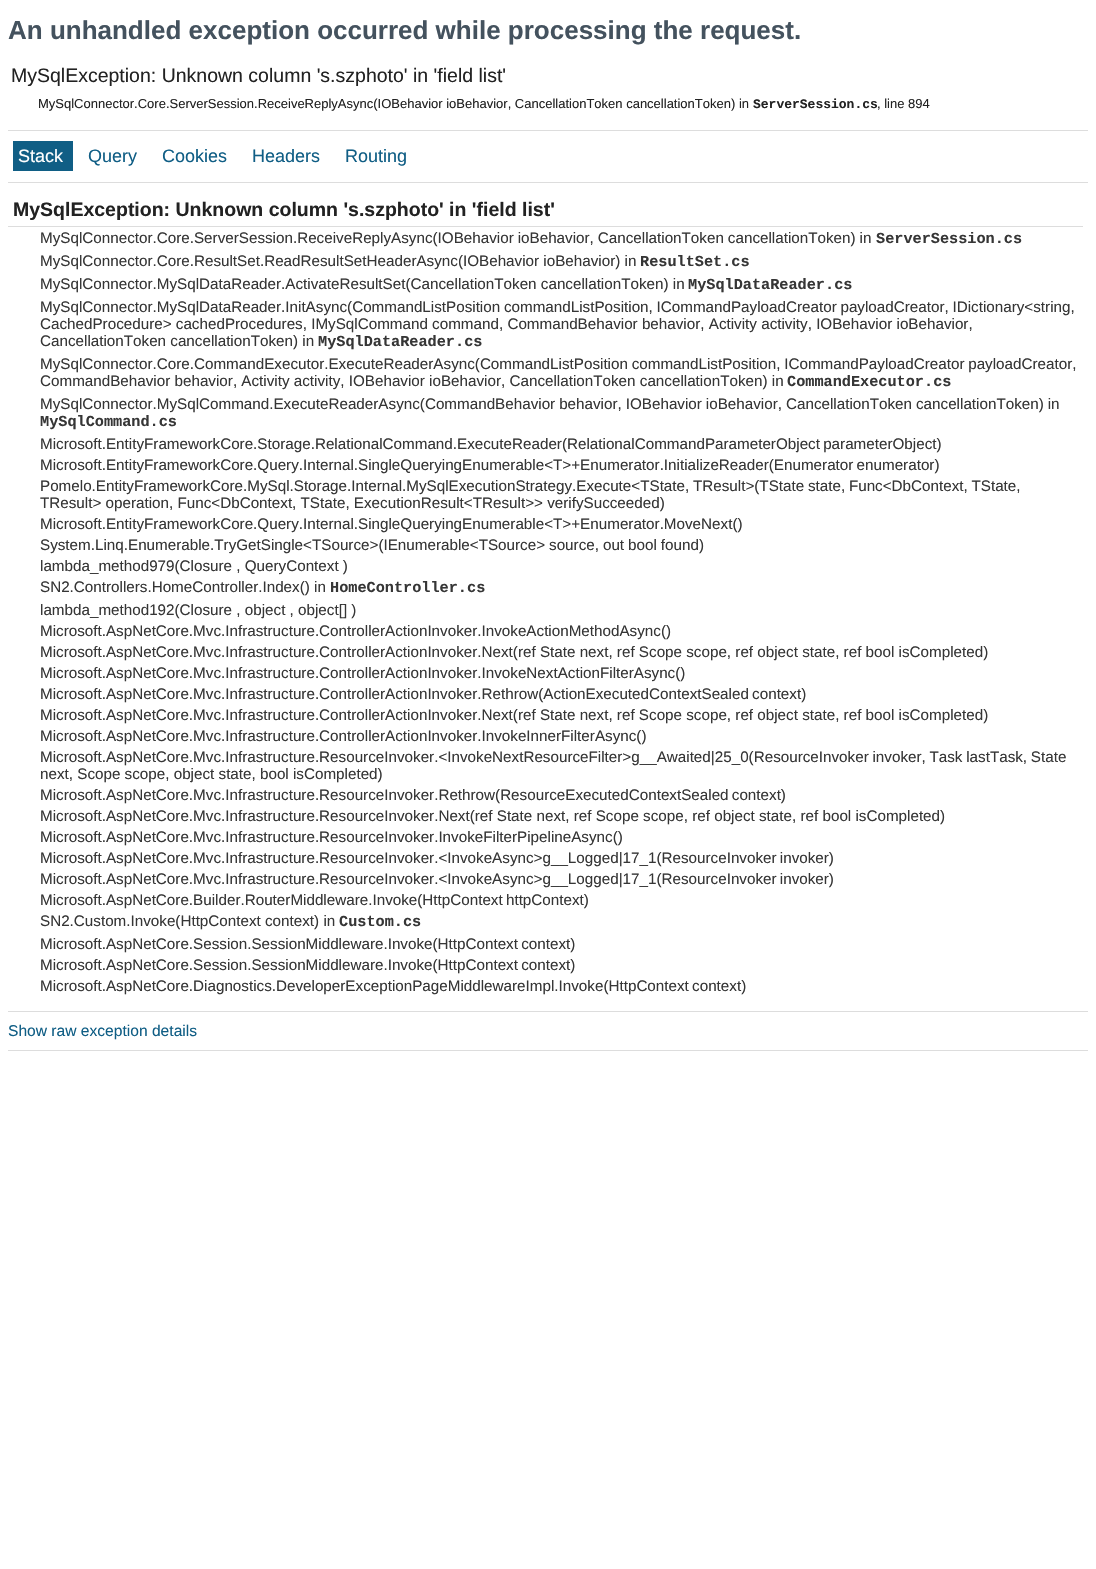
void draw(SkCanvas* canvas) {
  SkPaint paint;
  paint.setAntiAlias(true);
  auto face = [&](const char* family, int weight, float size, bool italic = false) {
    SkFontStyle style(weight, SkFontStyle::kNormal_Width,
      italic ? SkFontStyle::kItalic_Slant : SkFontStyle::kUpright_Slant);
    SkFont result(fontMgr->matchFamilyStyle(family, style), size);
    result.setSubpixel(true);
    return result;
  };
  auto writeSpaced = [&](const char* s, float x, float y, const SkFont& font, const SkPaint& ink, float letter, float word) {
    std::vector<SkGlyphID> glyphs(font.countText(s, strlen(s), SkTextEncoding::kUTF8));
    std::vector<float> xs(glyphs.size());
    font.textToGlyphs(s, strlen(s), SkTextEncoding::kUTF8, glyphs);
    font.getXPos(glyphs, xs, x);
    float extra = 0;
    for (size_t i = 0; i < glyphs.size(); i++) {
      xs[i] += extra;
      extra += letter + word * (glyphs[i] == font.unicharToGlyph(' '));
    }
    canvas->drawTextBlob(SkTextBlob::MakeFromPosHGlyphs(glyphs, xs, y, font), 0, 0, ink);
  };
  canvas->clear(0xffffffff);
  {
    const struct { float x, y, w, h; SkColor color; } items[] = {
      {8, 130, 1080, 1, 0xffdddddd},
      {8, 182, 1080, 1, 0xffdddddd},
      {13, 141, 60, 30, 0xff105e85},
      {8, 226, 1075, 1, 0xffdddddd},
      {8, 1011, 1080, 1, 0xffdddddd},
      {8, 1050, 1080, 1, 0xffdddddd},
    };
    for (auto [x, y, w, h, color] : items) {
      paint.setColor(color);
      canvas->drawRect(SkRect::MakeXYWH(x, y, w, h), paint);
    }
  }
  auto f0 = face("Liberation Sans", 700, 26);
  paint.setColor(0xff44525e);
  canvas->drawString("An unhandled exception occurred while processing the request.", 8, 39, f0, paint);
  auto f1 = face("Liberation Sans", 400, 19.5f);
  paint.setColor(0xff222222);
  canvas->drawString("MySqlException: Unknown column 's.szphoto' in 'field list'", 11, 82, f1, paint);
  auto f2 = face("Liberation Sans", 400, 13);
  canvas->drawString("MySqlConnector.Core.ServerSession.ReceiveReplyAsync(IOBehavior ioBehavior, CancellationToken cancellationToken) in", 38, 108, f2, paint);
  auto f3 = face("Liberation Mono", 700, 13);
  canvas->drawString("ServerSession.cs", 753, 108, f3, paint);
  canvas->drawString(", line 894", 877, 108, f2, paint);
  auto f4 = face("Liberation Sans", 400, 18);
  paint.setColor(0xffffffff);
  canvas->drawString("Stack", 18, 162, f4, paint);
  paint.setColor(0xff105e85);
  {
    const struct { const char* s; float x, y; } items[] = {
      {"Query", 88, 162},
      {"Cookies", 162, 162},
      {"Headers", 252, 162},
      {"Routing", 345, 162},
    };
    for (auto [s, x, y] : items) {
      canvas->drawString(s, x, y, f4, paint);
    }
  }
  auto f5 = face("Liberation Sans", 700, 19.5f);
  paint.setColor(0xff222222);
  canvas->drawString("MySqlException: Unknown column 's.szphoto' in 'field list'", 13, 216, f5, paint);
  auto f6 = face("Liberation Sans", 400, 15.22f);
  paint.setColor(0xff363636);
  writeSpaced("MySqlConnector.Core.ServerSession.ReceiveReplyAsync(IOBehavior ioBehavior, CancellationToken cancellationToken) in", 40, 243, f6, paint, 0, -0.25f);
  auto f7 = face("Liberation Mono", 700, 15.22f);
  canvas->drawString("ServerSession.cs", 876, 243, f7, paint);
  canvas->drawString("MySqlConnector.Core.ResultSet.ReadResultSetHeaderAsync(IOBehavior ioBehavior) in", 40, 266, f6, paint);
  canvas->drawString("ResultSet.cs", 640, 266, f7, paint);
  canvas->drawString("MySqlConnector.MySqlDataReader.ActivateResultSet(CancellationToken cancellationToken) in", 40, 289, f6, paint);
  canvas->drawString("MySqlDataReader.cs", 688, 289, f7, paint);
  writeSpaced("MySqlConnector.MySqlDataReader.InitAsync(CommandListPosition commandListPosition, ICommandPayloadCreator payloadCreator, IDictionary<string,", 40, 312, f6, paint, 0, -0.5f);
  canvas->drawString("CachedProcedure> cachedProcedures, IMySqlCommand command, CommandBehavior behavior, Activity activity, IOBehavior ioBehavior,", 40, 329, f6, paint);
  canvas->drawString("CancellationToken cancellationToken) in", 40, 346, f6, paint);
  canvas->drawString("MySqlDataReader.cs", 318, 346, f7, paint);
  writeSpaced("MySqlConnector.Core.CommandExecutor.ExecuteReaderAsync(CommandListPosition commandListPosition, ICommandPayloadCreator payloadCreator,", 40, 369, f6, paint, 0, -0.5f);
  canvas->drawString("CommandBehavior behavior, Activity activity, IOBehavior ioBehavior, CancellationToken cancellationToken) in", 40, 386, f6, paint);
  canvas->drawString("CommandExecutor.cs", 787, 386, f7, paint);
  writeSpaced("MySqlConnector.MySqlCommand.ExecuteReaderAsync(CommandBehavior behavior, IOBehavior ioBehavior, CancellationToken cancellationToken) in", 40, 409, f6, paint, 0, -0.25f);
  canvas->drawString("MySqlCommand.cs", 40, 426, f7, paint);
  writeSpaced("Microsoft.EntityFrameworkCore.Storage.RelationalCommand.ExecuteReader(RelationalCommandParameterObject parameterObject)", 40, 449, f6, paint, 0, -1);
  writeSpaced("Microsoft.EntityFrameworkCore.Query.Internal.SingleQueryingEnumerable<T>+Enumerator.InitializeReader(Enumerator enumerator)", 40, 470, f6, paint, 0, -1);
  writeSpaced("Pomelo.EntityFrameworkCore.MySql.Storage.Internal.MySqlExecutionStrategy.Execute<TState, TResult>(TState state, Func<DbContext, TState,", 40, 491, f6, paint, 0, -0.5f);
  canvas->drawString("TResult> operation, Func<DbContext, TState, ExecutionResult<TResult>> verifySucceeded)", 40, 508, f6, paint);
  canvas->drawString("Microsoft.EntityFrameworkCore.Query.Internal.SingleQueryingEnumerable<T>+Enumerator.MoveNext()", 40, 529, f6, paint);
  writeSpaced("System.Linq.Enumerable.TryGetSingle<TSource>(IEnumerable<TSource> source, out bool found)", 40, 550, f6, paint, 0, -0.25f);
  canvas->drawString("lambda_method979(Closure , QueryContext )", 40, 571, f6, paint);
  canvas->drawString("SN2.Controllers.HomeController.Index() in", 40, 592, f6, paint);
  canvas->drawString("HomeController.cs", 330, 592, f7, paint);
  {
    const struct { const char* s; float x, y; } items[] = {
      {"lambda_method192(Closure , object , object[] )", 40, 615},
      {"Microsoft.AspNetCore.Mvc.Infrastructure.ControllerActionInvoker.InvokeActionMethodAsync()", 40, 636},
      {"Microsoft.AspNetCore.Mvc.Infrastructure.ControllerActionInvoker.Next(ref State next, ref Scope scope, ref object state, ref bool isCompleted)", 40, 657},
      {"Microsoft.AspNetCore.Mvc.Infrastructure.ControllerActionInvoker.InvokeNextActionFilterAsync()", 40, 678},
    };
    for (auto [s, x, y] : items) {
      canvas->drawString(s, x, y, f6, paint);
    }
  }
  writeSpaced("Microsoft.AspNetCore.Mvc.Infrastructure.ControllerActionInvoker.Rethrow(ActionExecutedContextSealed context)", 40, 699, f6, paint, 0, -1);
  canvas->drawString("Microsoft.AspNetCore.Mvc.Infrastructure.ControllerActionInvoker.Next(ref State next, ref Scope scope, ref object state, ref bool isCompleted)", 40, 720, f6, paint);
  canvas->drawString("Microsoft.AspNetCore.Mvc.Infrastructure.ControllerActionInvoker.InvokeInnerFilterAsync()", 40, 741, f6, paint);
  writeSpaced("Microsoft.AspNetCore.Mvc.Infrastructure.ResourceInvoker.<InvokeNextResourceFilter>g__Awaited|25_0(ResourceInvoker invoker, Task lastTask, State", 40, 762, f6, paint, 0, -0.5f);
  canvas->drawString("next, Scope scope, object state, bool isCompleted)", 40, 779, f6, paint);
  writeSpaced("Microsoft.AspNetCore.Mvc.Infrastructure.ResourceInvoker.Rethrow(ResourceExecutedContextSealed context)", 40, 800, f6, paint, 0, -1);
  canvas->drawString("Microsoft.AspNetCore.Mvc.Infrastructure.ResourceInvoker.Next(ref State next, ref Scope scope, ref object state, ref bool isCompleted)", 40, 821, f6, paint);
  canvas->drawString("Microsoft.AspNetCore.Mvc.Infrastructure.ResourceInvoker.InvokeFilterPipelineAsync()", 40, 842, f6, paint);
  {
    const struct { const char* s; float x, y; } items[] = {
      {"Microsoft.AspNetCore.Mvc.Infrastructure.ResourceInvoker.<InvokeAsync>g__Logged|17_1(ResourceInvoker invoker)", 40, 863},
      {"Microsoft.AspNetCore.Mvc.Infrastructure.ResourceInvoker.<InvokeAsync>g__Logged|17_1(ResourceInvoker invoker)", 40, 884},
      {"Microsoft.AspNetCore.Builder.RouterMiddleware.Invoke(HttpContext httpContext)", 40, 905},
    };
    for (auto [s, x, y] : items) {
      writeSpaced(s, x, y, f6, paint, 0, -1);
    }
  }
  canvas->drawString("SN2.Custom.Invoke(HttpContext context) in", 40, 926, f6, paint);
  canvas->drawString("Custom.cs", 339, 926, f7, paint);
  {
    const struct { const char* s; float x, y; } items[] = {
      {"Microsoft.AspNetCore.Session.SessionMiddleware.Invoke(HttpContext context)", 40, 949},
      {"Microsoft.AspNetCore.Session.SessionMiddleware.Invoke(HttpContext context)", 40, 970},
      {"Microsoft.AspNetCore.Diagnostics.DeveloperExceptionPageMiddlewareImpl.Invoke(HttpContext context)", 40, 991},
    };
    for (auto [s, x, y] : items) {
      writeSpaced(s, x, y, f6, paint, 0, -1);
    }
  }
  auto f8 = face("Liberation Sans", 400, 15.6f);
  paint.setColor(0xff105e85);
  canvas->drawString("Show raw exception details", 8, 1036, f8, paint);
}
